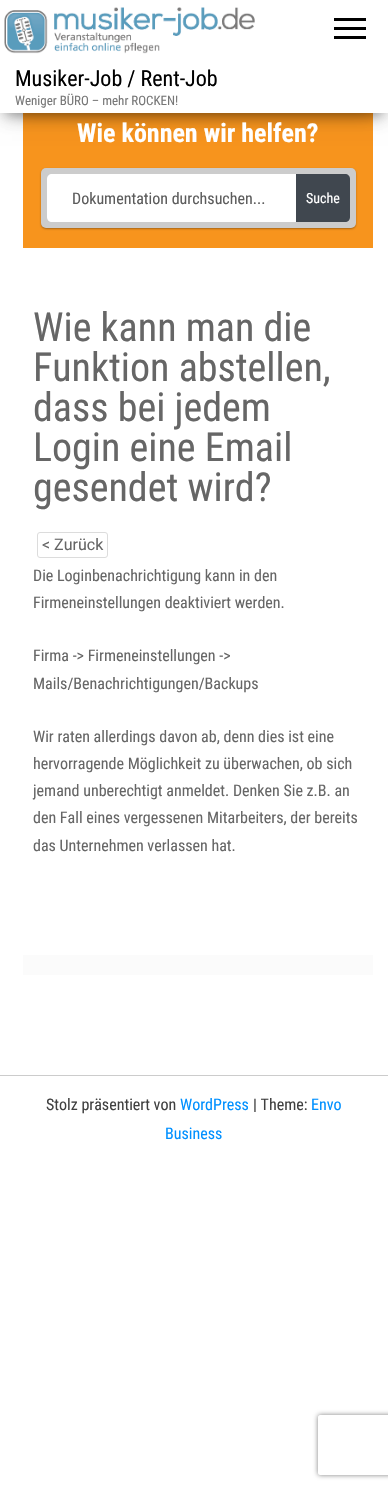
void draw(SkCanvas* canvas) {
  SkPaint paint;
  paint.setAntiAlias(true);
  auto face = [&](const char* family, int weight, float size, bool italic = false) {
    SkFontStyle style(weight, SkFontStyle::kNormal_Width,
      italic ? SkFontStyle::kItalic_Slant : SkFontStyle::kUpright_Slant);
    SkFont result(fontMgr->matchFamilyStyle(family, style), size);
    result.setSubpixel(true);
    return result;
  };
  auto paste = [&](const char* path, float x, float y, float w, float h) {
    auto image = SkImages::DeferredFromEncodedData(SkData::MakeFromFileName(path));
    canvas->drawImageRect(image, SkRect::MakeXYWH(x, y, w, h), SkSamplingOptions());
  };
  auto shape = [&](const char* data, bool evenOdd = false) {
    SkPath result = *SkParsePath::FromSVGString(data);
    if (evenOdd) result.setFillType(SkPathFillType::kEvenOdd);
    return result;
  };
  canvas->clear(0xffffffff);
  paint.setColor(0xfff7941d);
  canvas->drawRect(SkRect::MakeXYWH(23, 113, 350, 135), paint);
  paint.setColor(0x33000000);
  paint.setMaskFilter(SkMaskFilter::MakeBlur(kNormal_SkBlurStyle, 5));
  canvas->drawRect(SkRect::MakeXYWH(5, 13, 378, 103), paint);
  paint.setMaskFilter(nullptr);
  paint.setColor(0x1f000000);
  paint.setMaskFilter(SkMaskFilter::MakeBlur(kNormal_SkBlurStyle, 10));
  canvas->drawRect(SkRect::MakeXYWH(0, 3, 388, 113), paint);
  paint.setMaskFilter(nullptr);
  paint.setColor(0x6b000000);
  paint.setMaskFilter(SkMaskFilter::MakeBlur(kNormal_SkBlurStyle, 10));
  canvas->drawRect(SkRect::MakeXYWH(12, 22, 364, 89), paint);
  paint.setMaskFilter(nullptr);
  {
    const struct { float x, y, w, h; SkColor color; } items[] = {
      {0, 0, 388, 113, 0xffffffff},
      {334, 18, 32, 3, 0xff000000},
      {334, 27, 32, 3, 0xff000000},
      {334, 36, 32, 3, 0xff000000},
    };
    for (auto [x, y, w, h, color] : items) {
      paint.setColor(color);
      canvas->drawRect(SkRect::MakeXYWH(x, y, w, h), paint);
    }
  }
  paste("img/1.png", 4, 7, 251, 47);
  paint.setColor(0x52000000);
  paint.setMaskFilter(SkMaskFilter::MakeBlur(kNormal_SkBlurStyle, 1));
  canvas->drawRoundRect(SkRect::MakeXYWH(41, 169, 315, 60), 5, 5, paint);
  paint.setMaskFilter(nullptr);
  paint.setColor(0xffcccccc);
  canvas->drawRoundRect(SkRect::MakeXYWH(41, 168, 315, 60), 5, 5, paint);
  paint.setColor(0xffffffff);
  canvas->drawPath(shape("M52 174H296V222H52C49 222 47 220 47 217V179C47 176 49 174 52 174Z"), paint);
  paint.setColor(0xff40474f);
  canvas->drawPath(shape("M296 174H345C348 174 350 176 350 179V217C350 220 348 222 345 222H296Z"), paint);
  paint.setStroke(true);
  paint.setStrokeWidth(1);
  paint.setColor(0xffdcdcdc);
  canvas->drawRoundRect(SkRect::MakeXYWH(37.5f, 532.5f, 70, 25), 2.5f, 2.5f, paint);
  paint.setStroke(false);
  paint.setColor(0xfffbfbfb);
  canvas->drawRect(SkRect::MakeXYWH(23, 955, 350, 20), paint);
  paint.setColor(0xffcccccc);
  canvas->drawRect(SkRect::MakeXYWH(0, 1075, 388, 1), paint);
  canvas->save();
  canvas->clipPath(shape("M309 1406H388V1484H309ZM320 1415H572C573 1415 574 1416 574 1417V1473C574 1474 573 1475 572 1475H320C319 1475 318 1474 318 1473V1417C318 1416 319 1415 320 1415Z", true), true);
  paint.setColor(0xff808080);
  paint.setMaskFilter(SkMaskFilter::MakeBlur(kNormal_SkBlurStyle, 2.5f));
  canvas->drawRoundRect(SkRect::MakeXYWH(318, 1415, 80, 60), 2, 2, paint);
  paint.setMaskFilter(nullptr);
  canvas->restore();
  auto f0 = face("Roboto Condensed", 400, 22);
  paint.setColor(0xff000000);
  canvas->drawString("Musiker-Job / Rent-Job", 15, 86, f0, paint);
  auto f1 = face("Roboto Condensed", 400, 13);
  paint.setColor(0xff777777);
  canvas->drawString("Weniger BÜRO – mehr ROCKEN!", 15, 105, f1, paint);
  auto f2 = face("Roboto Condensed", 700, 26);
  paint.setColor(0xffffffff);
  canvas->drawString("Wie können wir helfen?", 77, 142, f2, paint);
  auto f3 = face("Roboto Condensed", 400, 16);
  paint.setColor(0xff5c5c5c);
  canvas->drawString("Dokumentation durchsuchen...", 72, 204, f3, paint);
  auto f4 = face("Roboto Condensed", 400, 14);
  paint.setColor(0xffffffff);
  canvas->drawString("Suche", 306, 203, f4, paint);
  auto f5 = face("Roboto Condensed", 400, 40);
  paint.setColor(0xff666666);
  {
    const struct { const char* s; float x, y; } items[] = {
      {"Wie kann man die", 33, 341},
      {"Funktion abstellen,", 33, 381},
      {"dass bei jedem", 33, 421},
      {"Login eine Email", 33, 461},
      {"gesendet wird?", 33, 501},
    };
    for (auto [s, x, y] : items) {
      canvas->drawString(s, x, y, f5, paint);
    }
  }
  auto f6 = face("Roboto", 400, 16);
  canvas->drawString("< Zurück", 42, 550, f6, paint);
  {
    const struct { const char* s; float x, y; } items[] = {
      {"Die Loginbenachrichtigung kann in den", 33, 581},
      {"Firmeneinstellungen deaktiviert werden.", 33, 608},
      {"Firma -> Firmeneinstellungen ->", 33, 661},
      {"Mails/Benachrichtigungen/Backups", 33, 689},
      {"Wir raten allerdings davon ab, denn dies ist eine", 33, 742},
      {"hervorragende Möglichkeit zu überwachen, ob sich", 33, 769},
      {"jemand unberechtigt anmeldet. Denken Sie z.B. an", 33, 796},
      {"den Fall eines vergessenen Mitarbeiters, der bereits", 33, 823},
      {"das Unternehmen verlassen hat.", 33, 851},
    };
    for (auto [s, x, y] : items) {
      canvas->drawString(s, x, y, f3, paint);
    }
  }
  paint.setColor(0xff404040);
  canvas->drawString("Stolz präsentiert von", 46, 1110, f3, paint);
  paint.setColor(0xff0090ff);
  canvas->drawString("WordPress", 180, 1110, f3, paint);
  paint.setColor(0xff404040);
  canvas->drawString("| Theme:", 253, 1110, f3, paint);
  paint.setColor(0xff0090ff);
  canvas->drawString("Envo", 311, 1110, f3, paint);
  canvas->drawString("Business", 165, 1139, f3, paint);
}
